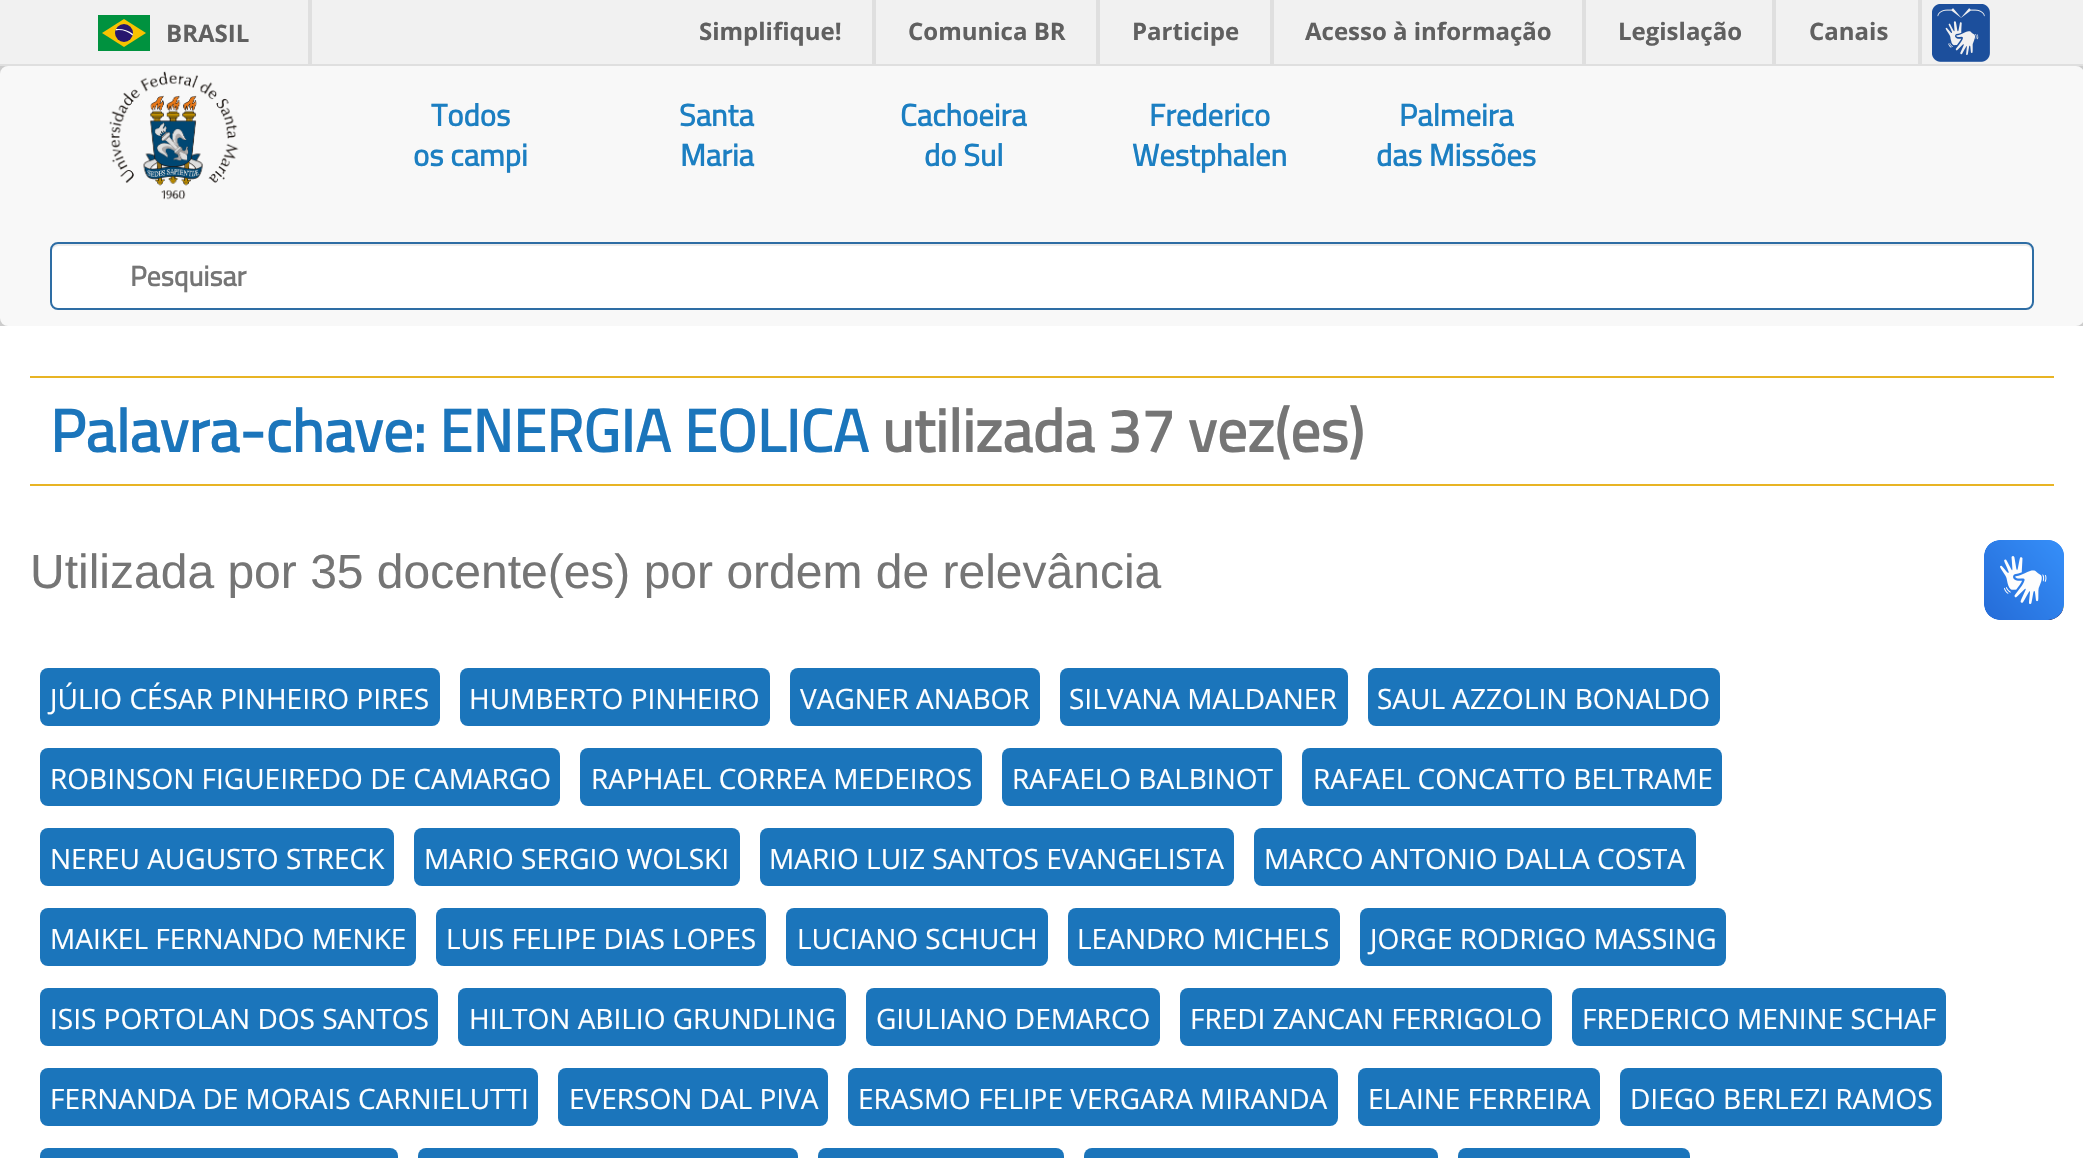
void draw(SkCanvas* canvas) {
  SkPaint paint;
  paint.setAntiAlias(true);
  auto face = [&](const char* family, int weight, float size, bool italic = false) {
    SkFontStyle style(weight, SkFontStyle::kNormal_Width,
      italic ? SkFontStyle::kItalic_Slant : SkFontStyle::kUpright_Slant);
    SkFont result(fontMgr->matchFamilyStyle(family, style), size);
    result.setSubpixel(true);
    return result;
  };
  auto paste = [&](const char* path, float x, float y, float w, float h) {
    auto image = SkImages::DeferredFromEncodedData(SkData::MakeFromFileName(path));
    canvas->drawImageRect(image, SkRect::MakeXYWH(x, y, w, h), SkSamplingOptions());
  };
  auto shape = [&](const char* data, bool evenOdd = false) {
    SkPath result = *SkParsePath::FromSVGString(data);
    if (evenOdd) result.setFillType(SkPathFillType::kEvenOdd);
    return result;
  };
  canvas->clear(0xffffffff);
  {
    const struct { float x, y, w, h; SkColor color; } items[] = {
      {0, 0, 2083, 64, 0xfff1f1f1},
      {0, 64, 2083, 2, 0xffdfdfdf},
      {308, 0, 4, 64, 0xffdfdfdf},
      {98, 15, 52, 36, 0xff00923f},
    };
    for (auto [x, y, w, h, color] : items) {
      paint.setColor(color);
      canvas->drawRect(SkRect::MakeXYWH(x, y, w, h), paint);
    }
  }
  paint.setColor(0xfff8c300);
  canvas->drawPath(shape("M124 19L102 33L124 47L146 33Z"), paint);
  paint.setColor(0xff28166f);
  canvas->drawCircle(124, 33, 9, paint);
  paint.setColor(0xffffffff);
  canvas->drawPath(shape("M118.5 30C124 30 129 32 132.5 35.5L133 34C128 30 122 28.5 116 29L115.5 30.5Z"), paint);
  {
    const struct { float x, y, w, h; SkColor color; } items[] = {
      {872, 0, 4, 64, 0xffdfdfdf},
      {1096, 0, 4, 64, 0xffdfdfdf},
      {1270, 0, 4, 64, 0xffdfdfdf},
      {1582, 0, 4, 64, 0xffdfdfdf},
      {1772, 0, 4, 64, 0xffdfdfdf},
      {1918, 0, 4, 64, 0xffdfdfdf},
    };
    for (auto [x, y, w, h, color] : items) {
      paint.setColor(color);
      canvas->drawRect(SkRect::MakeXYWH(x, y, w, h), paint);
    }
  }
  paste("img/1.png", 1932, 4, 58, 58);
  paint.setColor(0xffcccccc);
  canvas->drawRect(SkRect::MakeXYWH(0, 66, 2083, 260), paint);
  paint.setColor(0xfff8f8f8);
  canvas->drawRoundRect(SkRect::MakeXYWH(0, 66, 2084, 260), 8, 8, paint);
  paste("img/2.png", 109, 71, 130, 129);
  paint.setColor(0xffffffff);
  canvas->drawRoundRect(SkRect::MakeXYWH(50, 242, 1984, 68), 8, 8, paint);
  paint.setColor(0xffececec);
  canvas->drawPath(shape("M58 246H2026C2029 246 2032 249 2032 252C2032 248 2031 244 2026 244H58C53 244 52 248 52 252C52 249 55 246 58 246Z"), paint);
  paint.setStroke(true);
  paint.setStrokeWidth(2);
  paint.setColor(0xff2e6da4);
  canvas->drawRoundRect(SkRect::MakeXYWH(51, 243, 1982, 66), 7, 7, paint);
  paint.setStroke(false);
  paint.setColor(0xffe8b424);
  canvas->drawRect(SkRect::MakeXYWH(30, 376, 2024, 2), paint);
  canvas->drawRect(SkRect::MakeXYWH(30, 484, 2024, 2), paint);
  paint.setColor(0xff1b75bb);
  canvas->drawRoundRect(SkRect::MakeXYWH(40, 668, 400, 58), 8, 8, paint);
  canvas->drawRoundRect(SkRect::MakeXYWH(460, 668, 310, 58), 8, 8, paint);
  canvas->drawRoundRect(SkRect::MakeXYWH(790, 668, 250, 58), 8, 8, paint);
  canvas->drawRoundRect(SkRect::MakeXYWH(1060, 668, 288, 58), 8, 8, paint);
  canvas->drawRoundRect(SkRect::MakeXYWH(1368, 668, 352, 58), 8, 8, paint);
  canvas->drawRoundRect(SkRect::MakeXYWH(40, 748, 520, 58), 8, 8, paint);
  canvas->drawRoundRect(SkRect::MakeXYWH(580, 748, 402, 58), 8, 8, paint);
  canvas->drawRoundRect(SkRect::MakeXYWH(1002, 748, 280, 58), 8, 8, paint);
  canvas->drawRoundRect(SkRect::MakeXYWH(1302, 748, 420, 58), 8, 8, paint);
  canvas->drawRoundRect(SkRect::MakeXYWH(40, 828, 354, 58), 8, 8, paint);
  canvas->drawRoundRect(SkRect::MakeXYWH(414, 828, 326, 58), 8, 8, paint);
  canvas->drawRoundRect(SkRect::MakeXYWH(760, 828, 474, 58), 8, 8, paint);
  canvas->drawRoundRect(SkRect::MakeXYWH(1254, 828, 442, 58), 8, 8, paint);
  canvas->drawRoundRect(SkRect::MakeXYWH(40, 908, 376, 58), 8, 8, paint);
  canvas->drawRoundRect(SkRect::MakeXYWH(436, 908, 330, 58), 8, 8, paint);
  canvas->drawRoundRect(SkRect::MakeXYWH(786, 908, 262, 58), 8, 8, paint);
  canvas->drawRoundRect(SkRect::MakeXYWH(1068, 908, 272, 58), 8, 8, paint);
  canvas->drawRoundRect(SkRect::MakeXYWH(1360, 908, 366, 58), 8, 8, paint);
  canvas->drawRoundRect(SkRect::MakeXYWH(40, 988, 398, 58), 8, 8, paint);
  canvas->drawRoundRect(SkRect::MakeXYWH(458, 988, 388, 58), 8, 8, paint);
  canvas->drawRoundRect(SkRect::MakeXYWH(866, 988, 294, 58), 8, 8, paint);
  canvas->drawRoundRect(SkRect::MakeXYWH(1180, 988, 372, 58), 8, 8, paint);
  canvas->drawRoundRect(SkRect::MakeXYWH(1572, 988, 374, 58), 8, 8, paint);
  canvas->drawRoundRect(SkRect::MakeXYWH(40, 1068, 498, 58), 8, 8, paint);
  canvas->drawRoundRect(SkRect::MakeXYWH(558, 1068, 270, 58), 8, 8, paint);
  canvas->drawRoundRect(SkRect::MakeXYWH(848, 1068, 490, 58), 8, 8, paint);
  canvas->drawRoundRect(SkRect::MakeXYWH(1358, 1068, 242, 58), 8, 8, paint);
  canvas->drawRoundRect(SkRect::MakeXYWH(1620, 1068, 322, 58), 8, 8, paint);
  canvas->drawRoundRect(SkRect::MakeXYWH(40, 1148, 358, 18), 8, 8, paint);
  canvas->drawRoundRect(SkRect::MakeXYWH(418, 1148, 380, 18), 8, 8, paint);
  canvas->drawRoundRect(SkRect::MakeXYWH(818, 1148, 246, 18), 8, 8, paint);
  canvas->drawRoundRect(SkRect::MakeXYWH(1084, 1148, 354, 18), 8, 8, paint);
  canvas->drawRoundRect(SkRect::MakeXYWH(1458, 1148, 232, 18), 8, 8, paint);
  paste("img/3.png", 1984, 540, 80, 80);
  paste("img/4.png", 1984, 540, 80, 80);
  auto f0 = face("Open Sans", 700, 24);
  paint.setColor(0xff606060);
  {
    const struct { const char* s; float x, y; } items[] = {
      {"BRASIL", 166, 42},
      {"Simplifique!", 699, 40},
      {"Comunica BR", 908, 40},
      {"Participe", 1132, 40},
      {"Acesso à informação", 1305, 40},
      {"Legislação", 1618, 40},
      {"Canais", 1809, 40},
    };
    for (auto [s, x, y] : items) {
      canvas->drawString(s, x, y, f0, paint);
    }
  }
  auto f1 = face("Titillium Web", 700, 30.75f);
  paint.setColor(0xff1c7fc2);
  {
    const struct { const char* s; float x, y; } items[] = {
      {"Todos", 431, 126},
      {"os campi", 413, 166},
      {"Santa", 679, 126},
      {"Maria", 680, 166},
      {"Cachoeira", 900, 126},
      {"do Sul", 924, 166},
      {"Frederico", 1149, 126},
      {"Westphalen", 1132, 166},
      {"Palmeira", 1399, 126},
      {"das Missões", 1376, 166},
    };
    for (auto [s, x, y] : items) {
      canvas->drawString(s, x, y, f1, paint);
    }
  }
  auto f2 = face("Titillium Web", 700, 28);
  paint.setColor(0xff757575);
  canvas->drawString("Pesquisar", 130, 286, f2, paint);
  auto f3 = face("Titillium Web", 700, 60);
  paint.setColor(0xff1b75bb);
  canvas->drawString("Palavra-chave: ENERGIA EOLICA", 50, 452, f3, paint);
  paint.setColor(0xff757575);
  canvas->drawString("utilizada 37 vez(es)", 882, 452, f3, paint);
  auto f4 = face("Liberation Sans", 400, 48);
  canvas->drawString("Utilizada por 35 docente(es) por ordem de relevância", 30, 588, f4, paint);
  auto f5 = face("Open Sans", 400, 28);
  paint.setColor(0xffffffff);
  {
    const struct { const char* s; float x, y; } items[] = {
      {"JÚLIO CÉSAR PINHEIRO PIRES", 50, 709},
      {"HUMBERTO PINHEIRO", 469, 709},
      {"VAGNER ANABOR", 800, 709},
      {"SILVANA MALDANER", 1069, 709},
      {"SAUL AZZOLIN BONALDO", 1377, 709},
      {"ROBINSON FIGUEIREDO DE CAMARGO", 50, 789},
      {"RAPHAEL CORREA MEDEIROS", 591, 789},
      {"RAFAELO BALBINOT", 1012, 789},
      {"RAFAEL CONCATTO BELTRAME", 1313, 789},
      {"NEREU AUGUSTO STRECK", 50, 869},
      {"MARIO SERGIO WOLSKI", 424, 869},
      {"MARIO LUIZ SANTOS EVANGELISTA", 769, 869},
      {"MARCO ANTONIO DALLA COSTA", 1264, 869},
      {"MAIKEL FERNANDO MENKE", 50, 949},
      {"LUIS FELIPE DIAS LOPES", 446, 949},
      {"LUCIANO SCHUCH", 797, 949},
      {"LEANDRO MICHELS", 1077, 949},
      {"JORGE RODRIGO MASSING", 1370, 949},
      {"ISIS PORTOLAN DOS SANTOS", 50, 1029},
      {"HILTON ABILIO GRUNDLING", 469, 1029},
      {"GIULIANO DEMARCO", 876, 1029},
      {"FREDI ZANCAN FERRIGOLO", 1190, 1029},
      {"FREDERICO MENINE SCHAF", 1582, 1029},
      {"FERNANDA DE MORAIS CARNIELUTTI", 50, 1109},
      {"EVERSON DAL PIVA", 569, 1109},
      {"ERASMO FELIPE VERGARA MIRANDA", 858, 1109},
      {"ELAINE FERREIRA", 1368, 1109},
      {"DIEGO BERLEZI RAMOS", 1630, 1109},
    };
    for (auto [s, x, y] : items) {
      canvas->drawString(s, x, y, f5, paint);
    }
  }
}
